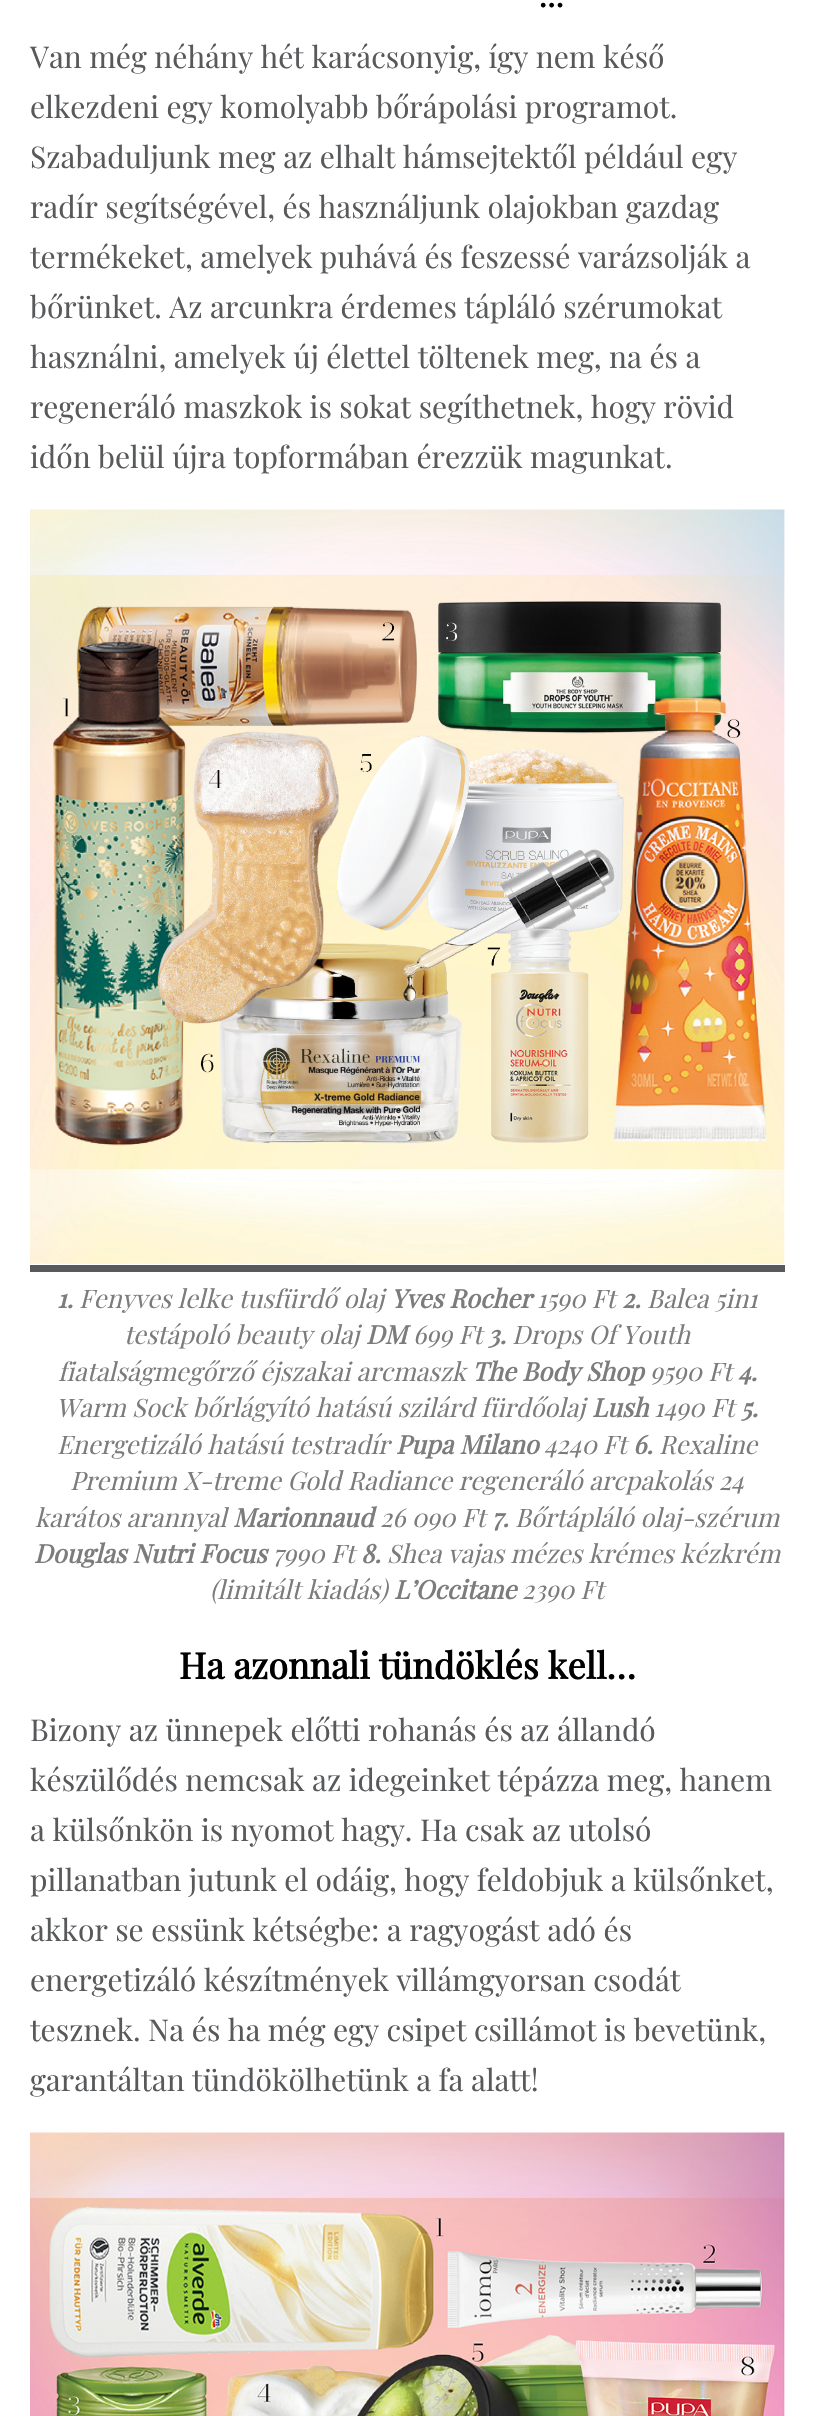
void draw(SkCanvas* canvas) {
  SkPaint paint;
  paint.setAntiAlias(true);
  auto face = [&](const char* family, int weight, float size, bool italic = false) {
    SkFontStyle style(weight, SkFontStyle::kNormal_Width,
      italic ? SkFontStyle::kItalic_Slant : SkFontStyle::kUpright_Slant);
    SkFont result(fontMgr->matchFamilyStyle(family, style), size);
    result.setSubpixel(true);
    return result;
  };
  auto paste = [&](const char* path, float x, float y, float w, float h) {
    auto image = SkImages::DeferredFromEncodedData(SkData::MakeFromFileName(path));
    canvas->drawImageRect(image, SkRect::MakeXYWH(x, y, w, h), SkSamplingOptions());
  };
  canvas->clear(0xffffffff);
  paste("img/1.png", 30, 509, 755, 755);
  paint.setColor(0xff58595b);
  canvas->drawRect(SkRect::MakeXYWH(30, 1265, 755, 7), paint);
  paste("img/2.png", 30, 2132, 755, 284);
  auto f0 = face("Playfair Display", 700, 30);
  paint.setColor(0xff000000);
  canvas->drawString("…", 539, 7, f0, paint);
  auto f1 = face("Playfair Display", 400, 30);
  paint.setColor(0xff58595b);
  {
    const struct { const char* s; float x, y; } items[] = {
      {"Van még néhány hét karácsonyig, így nem késő", 30, 68},
      {"elkezdeni egy komolyabb bőrápolási programot.", 30, 118},
      {"Szabaduljunk meg az elhalt hámsejtektől például egy", 30, 168},
      {"radír segítségével, és használjunk olajokban gazdag", 30, 218},
      {"termékeket, amelyek puhává és feszessé varázsolják a", 30, 268},
      {"bőrünket. Az arcunkra érdemes tápláló szérumokat", 30, 318},
      {"használni, amelyek új élettel töltenek meg, na és a", 30, 368},
      {"regeneráló maszkok is sokat segíthetnek, hogy rövid", 30, 418},
      {"időn belül újra topformában érezzük magunkat.", 30, 468},
    };
    for (auto [s, x, y] : items) {
      canvas->drawString(s, x, y, f1, paint);
    }
  }
  auto f2 = face("Playfair Display", 700, 25.5f, true);
  paint.setColor(0xff7c7c7c);
  canvas->drawString("1.", 57, 1308, f2, paint);
  auto f3 = face("Playfair Display", 400, 25.5f, true);
  canvas->drawString("Fenyves lelke tusfürdő olaj", 79, 1308, f3, paint);
  canvas->drawString("Yves Rocher", 391, 1308, f2, paint);
  canvas->drawString("1590 Ft", 537, 1308, f3, paint);
  canvas->drawString("2.", 622, 1308, f2, paint);
  canvas->drawString("Balea 5in1", 647, 1308, f3, paint);
  canvas->drawString("testápoló beauty olaj", 124, 1344, f3, paint);
  canvas->drawString("DM", 366, 1344, f2, paint);
  canvas->drawString("699 Ft", 413, 1344, f3, paint);
  canvas->drawString("3.", 488, 1344, f2, paint);
  canvas->drawString("Drops Of Youth", 512, 1344, f3, paint);
  canvas->drawString("fiatalságmegőrző éjszakai arcmaszk", 58, 1381, f3, paint);
  canvas->drawString("The Body Shop", 472, 1381, f2, paint);
  canvas->drawString("9590 Ft", 650, 1381, f3, paint);
  canvas->drawString("4.", 738, 1381, f2, paint);
  canvas->drawString("Warm Sock bőrlágyító hatású szilárd fürdőolaj", 56, 1417, f3, paint);
  canvas->drawString("Lush", 592, 1417, f2, paint);
  canvas->drawString("1490 Ft", 654, 1417, f3, paint);
  canvas->drawString("5.", 741, 1417, f2, paint);
  canvas->drawString("Energetizáló hatású testradír", 57, 1454, f3, paint);
  canvas->drawString("Pupa Milano", 396, 1454, f2, paint);
  canvas->drawString("4240 Ft", 544, 1454, f3, paint);
  canvas->drawString("6.", 633, 1454, f2, paint);
  {
    const struct { const char* s; float x, y; } items[] = {
      {"Rexaline", 659, 1454},
      {"Premium X-treme Gold Radiance regeneráló arcpakolás 24", 70, 1490},
      {"karátos arannyal", 35, 1527},
    };
    for (auto [s, x, y] : items) {
      canvas->drawString(s, x, y, f3, paint);
    }
  }
  canvas->drawString("Marionnaud", 233, 1527, f2, paint);
  canvas->drawString("26 090 Ft", 380, 1527, f3, paint);
  canvas->drawString("7.", 492, 1527, f2, paint);
  canvas->drawString("Bőrtápláló olaj-szérum", 515, 1527, f3, paint);
  canvas->drawString("Douglas Nutri Focus", 34, 1563, f2, paint);
  canvas->drawString("7990 Ft", 273, 1563, f3, paint);
  canvas->drawString("8.", 361, 1563, f2, paint);
  canvas->drawString("Shea vajas mézes krémes kézkrém", 387, 1563, f3, paint);
  canvas->drawString("(limitált kiadás)", 210, 1599, f3, paint);
  canvas->drawString("L’Occitane", 394, 1599, f2, paint);
  canvas->drawString("2390 Ft", 522, 1599, f3, paint);
  auto f4 = face("Playfair Display", 700, 36);
  paint.setColor(0xff000000);
  canvas->drawString("Ha azonnali tündöklés kell…", 179, 1679, f4, paint);
  paint.setColor(0xff58595b);
  {
    const struct { const char* s; float x, y; } items[] = {
      {"Bizony az ünnepek előtti rohanás és az állandó", 30, 1741},
      {"készülődés nemcsak az idegeinket tépázza meg, hanem", 30, 1791},
      {"a külsőnkön is nyomot hagy. Ha csak az utolsó", 30, 1841},
      {"pillanatban jutunk el odáig, hogy feldobjuk a külsőnket,", 30, 1891},
      {"akkor se essünk kétségbe: a ragyogást adó és", 30, 1941},
      {"energetizáló készítmények villámgyorsan csodát", 30, 1991},
      {"tesznek. Na és ha még egy csipet csillámot is bevetünk,", 30, 2041},
      {"garantáltan tündökölhetünk a fa alatt!", 30, 2091},
    };
    for (auto [s, x, y] : items) {
      canvas->drawString(s, x, y, f1, paint);
    }
  }
}
